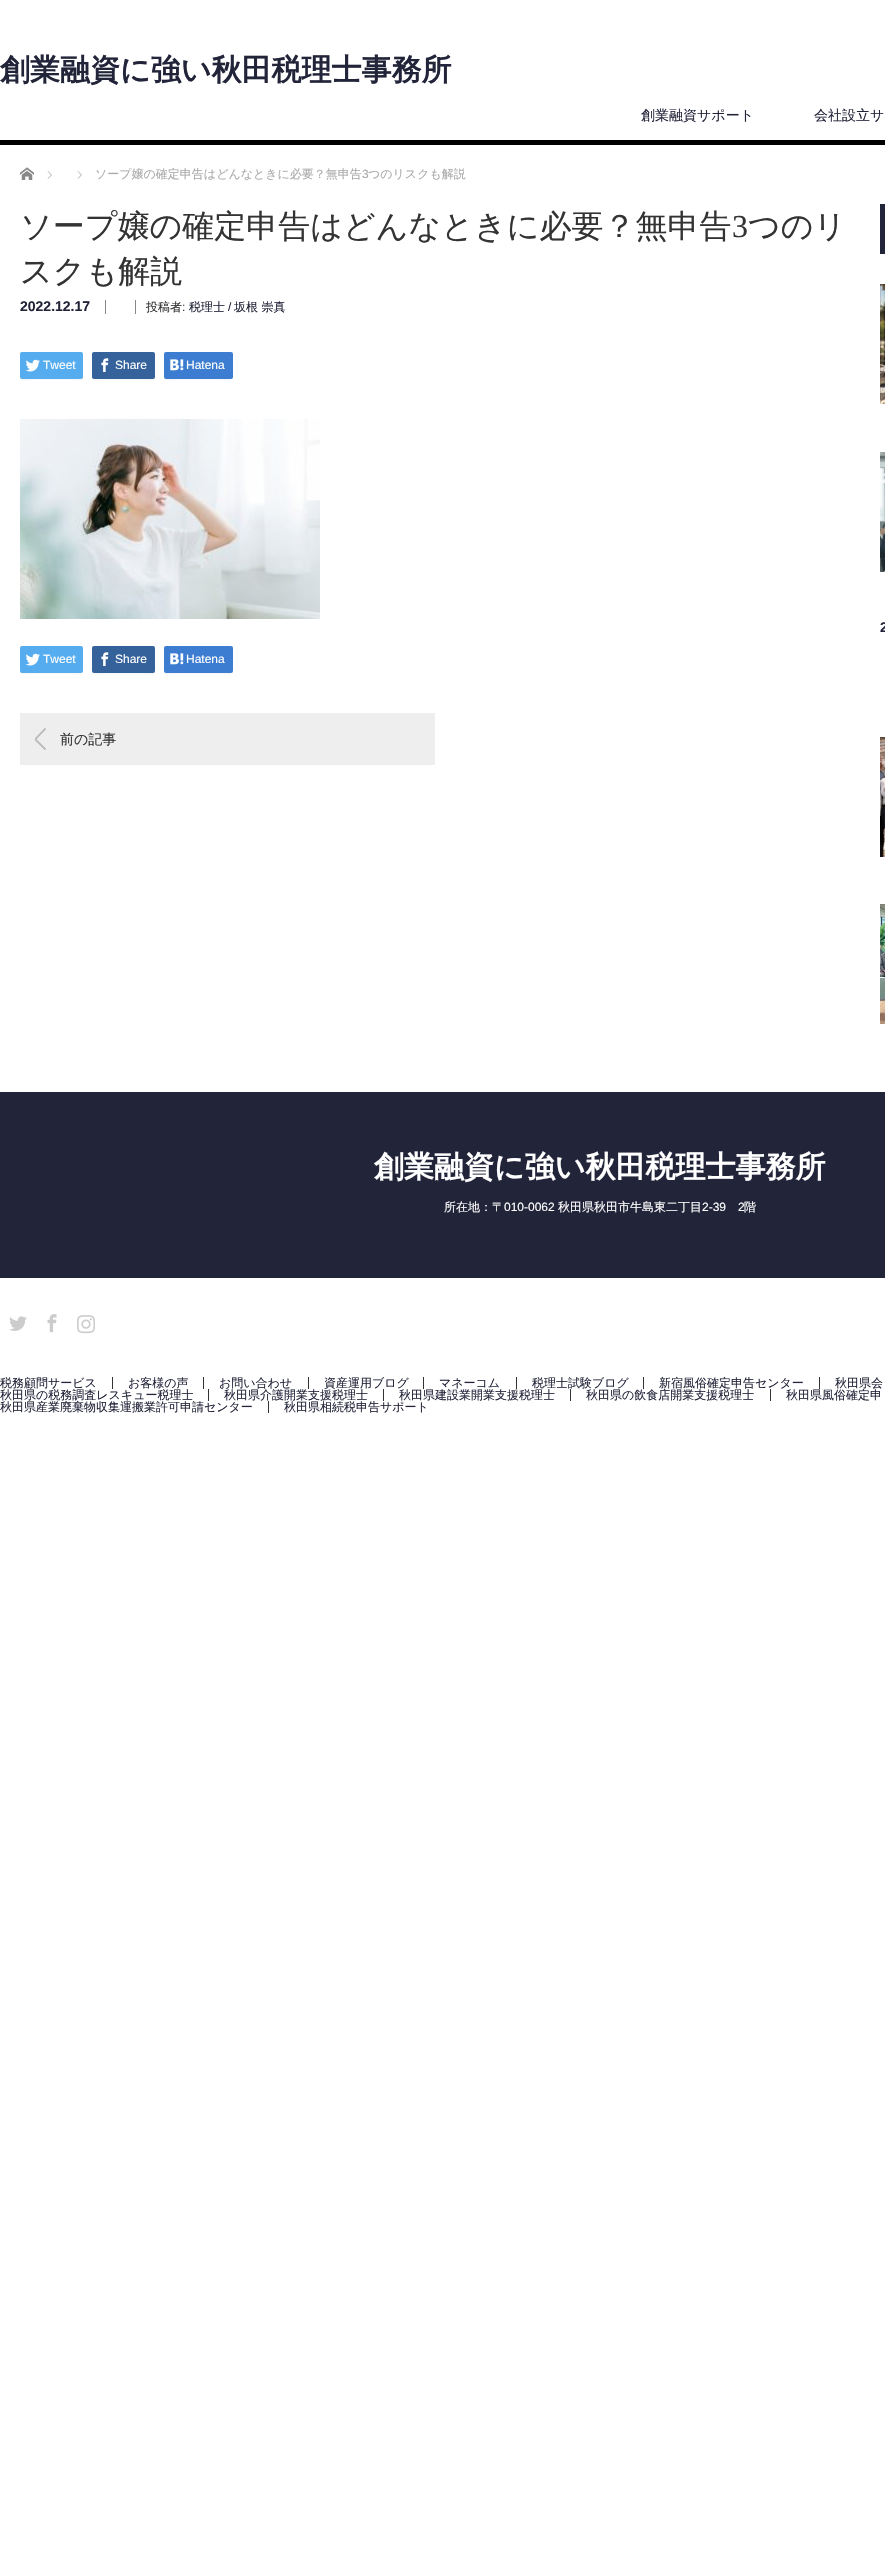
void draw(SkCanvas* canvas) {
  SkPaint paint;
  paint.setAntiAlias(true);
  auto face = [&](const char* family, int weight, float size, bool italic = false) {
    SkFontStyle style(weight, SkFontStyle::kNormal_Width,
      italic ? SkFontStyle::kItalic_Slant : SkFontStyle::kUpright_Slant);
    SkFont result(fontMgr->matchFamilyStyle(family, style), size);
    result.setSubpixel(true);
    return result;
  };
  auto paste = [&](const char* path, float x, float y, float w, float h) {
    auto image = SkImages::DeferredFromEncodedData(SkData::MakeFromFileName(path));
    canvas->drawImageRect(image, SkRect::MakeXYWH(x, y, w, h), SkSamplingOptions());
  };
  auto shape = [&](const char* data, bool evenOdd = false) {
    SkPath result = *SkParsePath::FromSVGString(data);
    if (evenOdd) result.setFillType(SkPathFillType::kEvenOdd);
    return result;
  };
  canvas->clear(0xffffffff);
  paint.setColor(0xff000000);
  canvas->drawRect(SkRect::MakeXYWH(0, 140, 885, 5), paint);
  paste("img/1.png", 20, 167, 14, 13);
  paste("img/2.png", 47, 171, 5, 8);
  paste("img/2.png", 77, 171, 5, 8);
  paint.setColor(0xff888888);
  canvas->drawRect(SkRect::MakeXYWH(105, 300, 1, 14), paint);
  canvas->drawRect(SkRect::MakeXYWH(135, 300, 1, 14), paint);
  paint.setColor(0xfff7f7f7);
  canvas->drawPath(shape("M20 377C20 383 28 380 32 380H71C75 380 83 383 83 377C83 381 75 379 71 379H21Z"), paint);
  paint.setColor(0xff55acee);
  canvas->drawRoundRect(SkRect::MakeXYWH(20, 352, 63, 27), 2, 2, paint);
  paste("img/3.png", 25, 359, 15, 13);
  paint.setColor(0xfff7f7f7);
  canvas->drawPath(shape("M92 377C92 383 100 380 104 380H143C147 380 155 383 155 377L154 379H104C100 379 92 381 92 377Z"), paint);
  paint.setColor(0xff35629a);
  canvas->drawRoundRect(SkRect::MakeXYWH(92, 352, 63, 27), 2, 2, paint);
  paste("img/4.png", 101, 358, 8, 14);
  paint.setColor(0xfff7f7f7);
  canvas->drawPath(shape("M164 377C164 383 173 380 177 380H220C224 380 233 383 233 377C233 378 232 379 231 379H165Z"), paint);
  paint.setColor(0xff3c7dd1);
  canvas->drawRoundRect(SkRect::MakeXYWH(164, 352, 69, 27), 2, 2, paint);
  paste("img/5.png", 170, 359, 14, 12);
  paste("img/6.png", 20, 419, 300, 200);
  paint.setColor(0xfff7f7f7);
  canvas->drawPath(shape("M20 671C20 677 28 674 32 674H71C75 674 83 677 83 671C83 675 75 673 71 673H21Z"), paint);
  paint.setColor(0xff55acee);
  canvas->drawRoundRect(SkRect::MakeXYWH(20, 646, 63, 27), 2, 2, paint);
  paste("img/3.png", 25, 653, 15, 13);
  paint.setColor(0xfff7f7f7);
  canvas->drawPath(shape("M92 671C92 677 100 674 104 674H143C147 674 155 677 155 671L154 673H104C100 673 92 675 92 671Z"), paint);
  paint.setColor(0xff35629a);
  canvas->drawRoundRect(SkRect::MakeXYWH(92, 646, 63, 27), 2, 2, paint);
  paste("img/4.png", 101, 652, 8, 14);
  paint.setColor(0xfff7f7f7);
  canvas->drawPath(shape("M164 671C164 677 173 674 177 674H220C224 674 233 677 233 671C233 672 232 673 231 673H165Z"), paint);
  paint.setColor(0xff3c7dd1);
  canvas->drawRoundRect(SkRect::MakeXYWH(164, 646, 69, 27), 2, 2, paint);
  paste("img/5.png", 170, 653, 14, 12);
  paint.setColor(0xffeeeeee);
  canvas->drawRect(SkRect::MakeXYWH(20, 713, 415, 52), paint);
  paste("img/7.png", 35, 728, 11, 22);
  paint.setColor(0xff222439);
  canvas->drawRect(SkRect::MakeXYWH(880, 204, 5, 50), paint);
  paste("img/8.png", 880, 284, 5, 120);
  paste("img/9.png", 880, 452, 5, 120);
  paste("img/10.png", 880, 737, 5, 120);
  paste("img/11.png", 880, 904, 5, 120);
  canvas->drawRect(SkRect::MakeXYWH(0, 1092, 885, 186), paint);
  paste("img/12.png", 9, 1316, 18, 15);
  paste("img/13.png", 47, 1314, 10, 19);
  paste("img/14.png", 77, 1315, 18, 19);
  {
    const struct { float x, y, w, h; SkColor color; } items[] = {
      {112, 1377, 1, 12, 0xff333333},
      {203, 1377, 1, 12, 0xff333333},
      {308, 1377, 1, 12, 0xff333333},
      {423, 1377, 1, 12, 0xff333333},
      {516, 1377, 1, 12, 0xff333333},
      {643, 1377, 1, 12, 0xff333333},
      {819, 1377, 1, 12, 0xff333333},
      {208, 1389, 1, 12, 0xff333333},
      {570, 1389, 1, 12, 0xff333333},
      {770, 1389, 1, 12, 0xff333333},
      {268, 1401, 1, 12, 0xff333333},
    };
    for (auto [x, y, w, h, color] : items) {
      paint.setColor(color);
      canvas->drawRect(SkRect::MakeXYWH(x, y, w, h), paint);
    }
  }
  auto f0 = face("WenQuanYi Zen Hei", 700, 30);
  paint.setColor(0xff222439);
  canvas->drawString("創業融資に強い秋田税理士事務所", 0, 80, f0, paint);
  auto f1 = face("WenQuanYi Zen Hei", 500, 14);
  canvas->drawString("創業融資サポート", 641, 120, f1, paint);
  canvas->drawString("会社設立サ", 814, 120, f1, paint);
  auto f2 = face("WenQuanYi Zen Hei", 500, 12);
  paint.setColor(0xffaaaaaa);
  canvas->drawString("ソープ嬢の確定申告はどんなときに必要？無申告", 95, 178, f2, paint);
  auto f3 = face("Liberation Sans", 400, 12);
  canvas->drawString("3", 362, 178, f3, paint);
  canvas->drawString("つのリスクも解説", 368, 178, f2, paint);
  auto f4 = face("WenQuanYi Zen Hei", 500, 32);
  paint.setColor(0xff333333);
  canvas->drawString("ソープ嬢の確定申告はどんなときに必要？無申告", 20, 237, f4, paint);
  auto f5 = face("Liberation Serif", 400, 32);
  canvas->drawString("3", 732, 237, f5, paint);
  canvas->drawString("つのリ", 748, 237, f4, paint);
  canvas->drawString("スクも解説", 20, 282, f4, paint);
  auto f6 = face("Liberation Sans", 700, 14);
  paint.setColor(0xff222439);
  canvas->drawString("2022.12.17", 20, 311, f6, paint);
  paint.setColor(0xff333333);
  canvas->drawString("投稿者", 146, 311, f2, paint);
  canvas->drawString(":", 182, 311, f3, paint);
  paint.setColor(0xff222439);
  canvas->drawString("税理士", 189, 311, f2, paint);
  canvas->drawString("/", 228, 311, f3, paint);
  canvas->drawString("坂根 崇真", 234, 311, f2, paint);
  paint.setColor(0xffffffff);
  {
    const struct { const char* s; float x, y; } items[] = {
      {"Tweet", 43, 369},
      {"Share", 115, 369},
      {"Hatena", 186, 369},
      {"Tweet", 43, 663},
      {"Share", 115, 663},
      {"Hatena", 186, 663},
    };
    for (auto [s, x, y] : items) {
      canvas->drawString(s, x, y, f3, paint);
    }
  }
  paint.setColor(0xff333333);
  canvas->drawString("前の記事", 60, 744, f1, paint);
  paint.setColor(0xff222439);
  canvas->drawString("2", 880, 632, f6, paint);
  paint.setColor(0xffffffff);
  canvas->drawString("創業融資に強い秋田税理士事務所", 374, 1177, f0, paint);
  canvas->drawString("所在地：〒", 444, 1211, f2, paint);
  canvas->drawString("010-0062", 504, 1211, f3, paint);
  canvas->drawString("秋田県秋田市牛島東二丁目", 558, 1211, f2, paint);
  canvas->drawString("2-39", 702, 1211, f3, paint);
  canvas->drawString("2", 738, 1211, f3, paint);
  canvas->drawString("階", 744, 1211, f2, paint);
  paint.setColor(0xff222439);
  {
    const struct { const char* s; float x, y; } items[] = {
      {"税務顧問サービス", 0, 1387},
      {"お客様の声", 128, 1387},
      {"お問い合わせ", 219, 1387},
      {"資産運用ブログ", 324, 1387},
      {"マネーコム", 439, 1387},
      {"税理士試験ブログ", 532, 1387},
      {"新宿風俗確定申告センター", 659, 1387},
      {"秋田県会", 835, 1387},
      {"秋田県の税務調査レスキュー税理士", 0, 1399},
    };
    for (auto [s, x, y] : items) {
      canvas->drawString(s, x, y, f2, paint);
    }
  }
  paint.setColor(0xff333333);
  canvas->drawRect(SkRect::MakeXYWH(383, 1389, 1, 12), paint);
  paint.setColor(0xff222439);
  {
    const struct { const char* s; float x, y; } items[] = {
      {"秋田県介護開業支援税理士", 224, 1399},
      {"秋田県建設業開業支援税理士", 399, 1399},
      {"秋田県の飲食店開業支援税理士", 586, 1399},
      {"秋田県風俗確定申", 786, 1399},
      {"秋田県産業廃棄物収集運搬業許可申請センター", 0, 1411},
      {"秋田県相続税申告サポート", 284, 1411},
    };
    for (auto [s, x, y] : items) {
      canvas->drawString(s, x, y, f2, paint);
    }
  }
}
